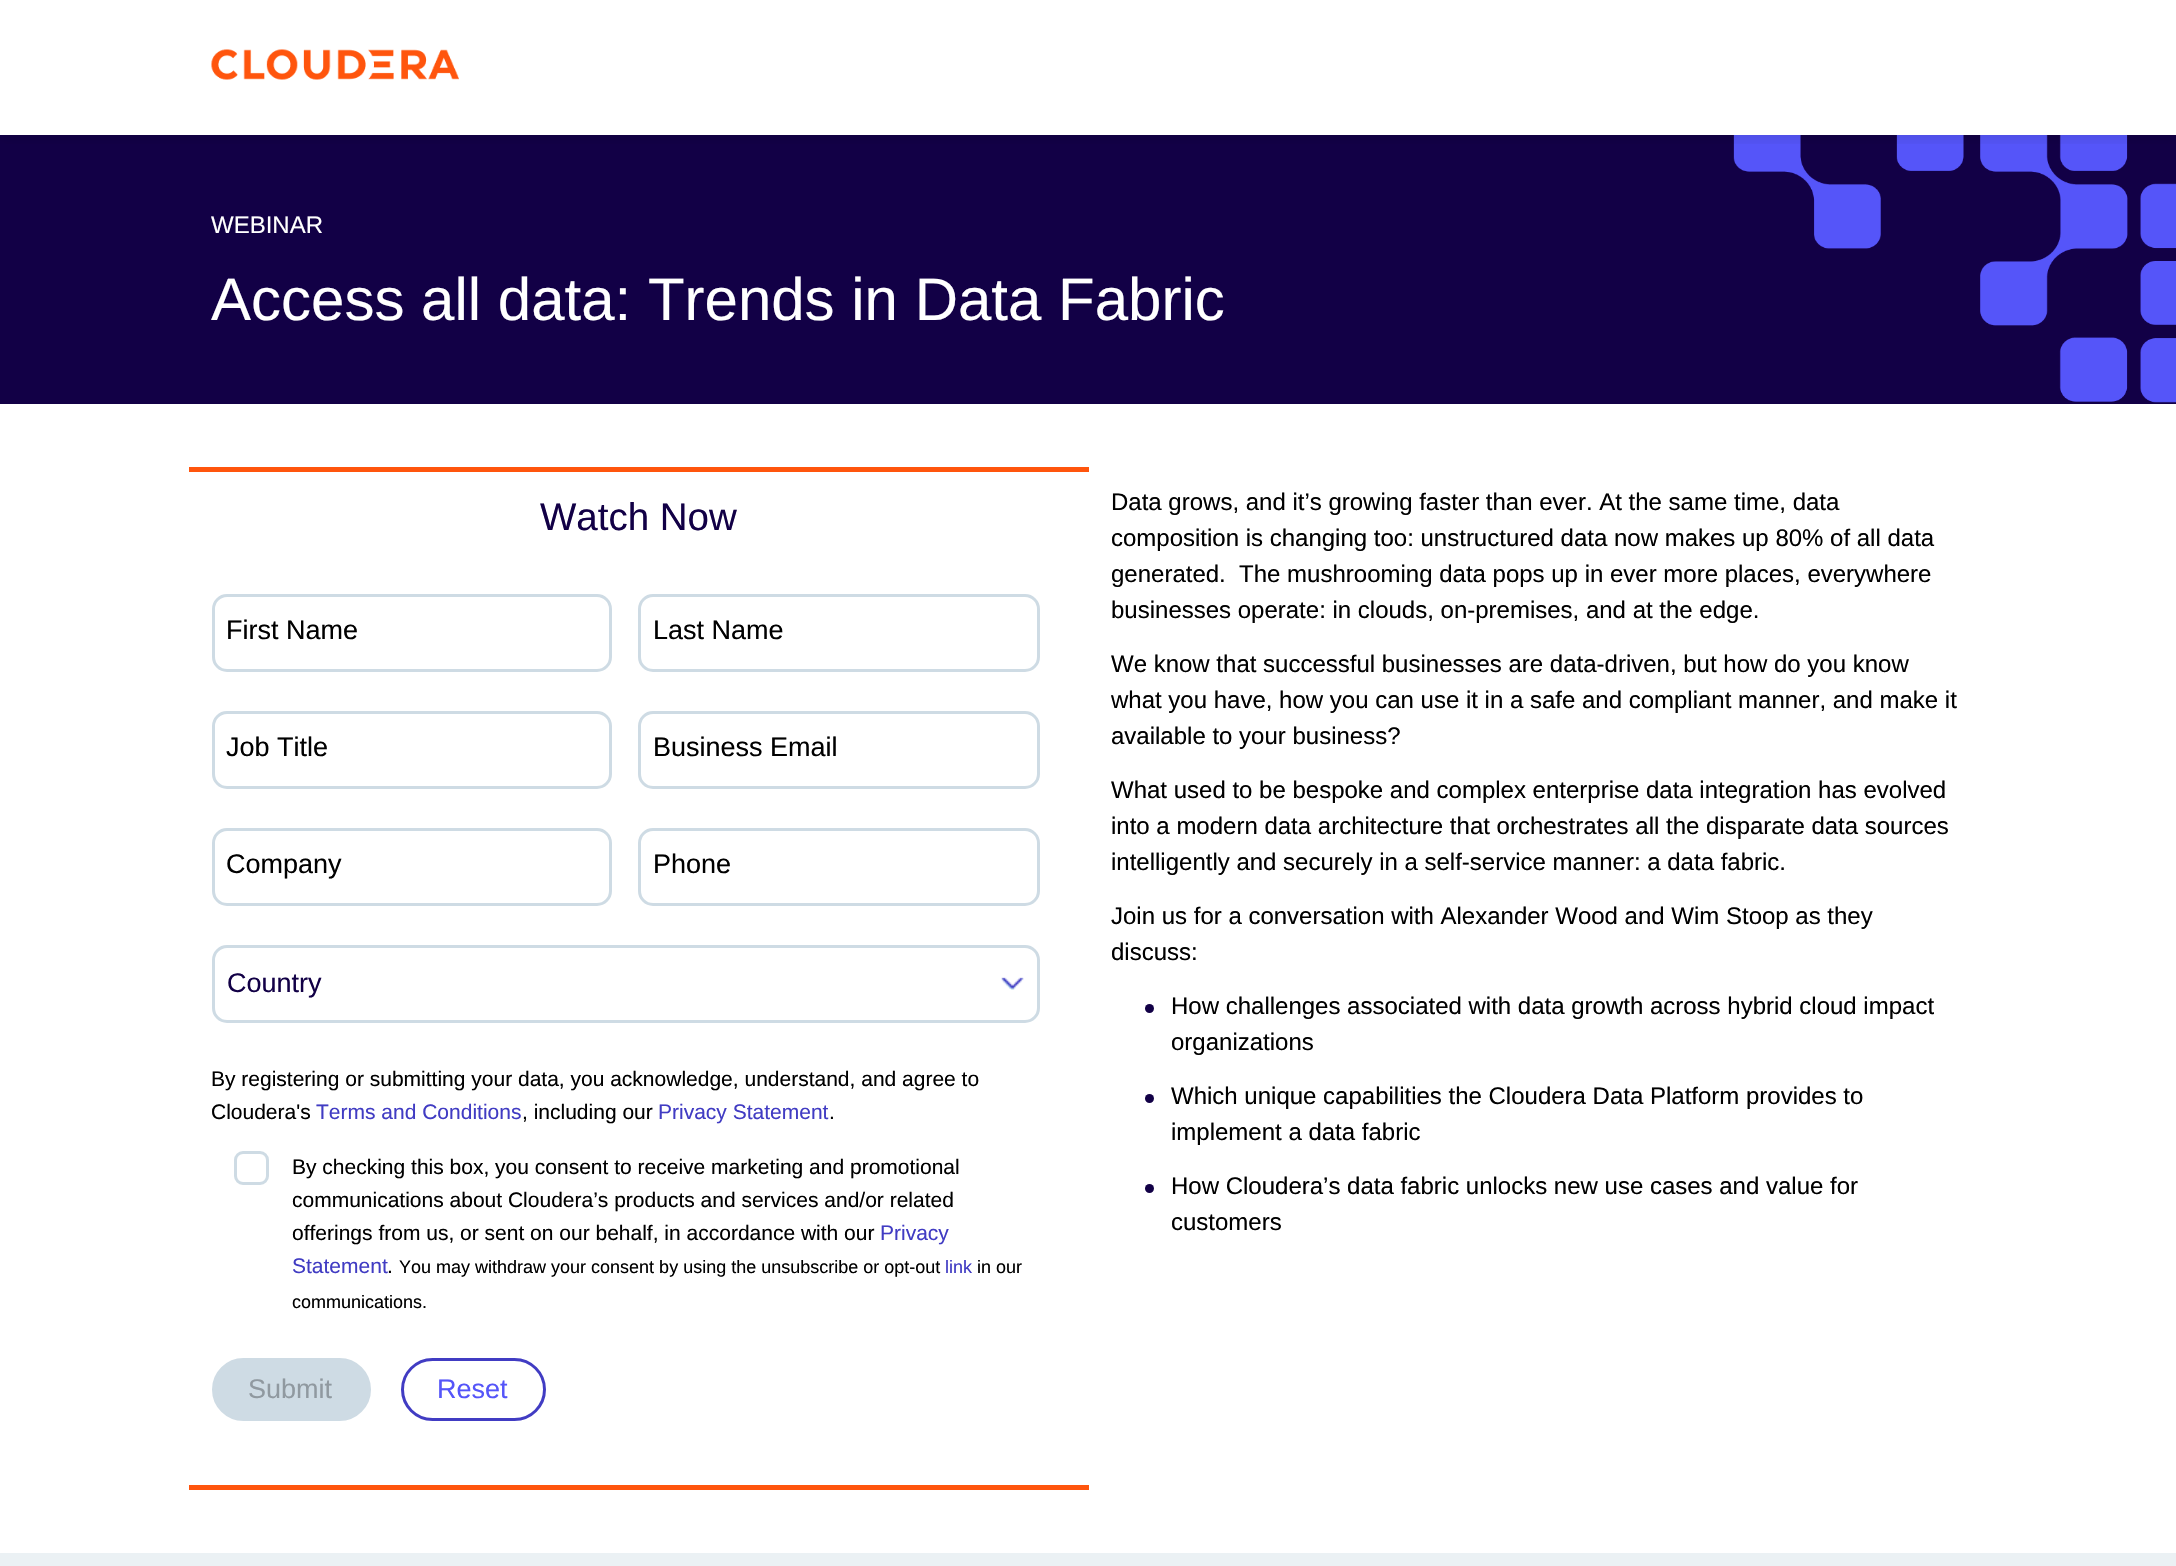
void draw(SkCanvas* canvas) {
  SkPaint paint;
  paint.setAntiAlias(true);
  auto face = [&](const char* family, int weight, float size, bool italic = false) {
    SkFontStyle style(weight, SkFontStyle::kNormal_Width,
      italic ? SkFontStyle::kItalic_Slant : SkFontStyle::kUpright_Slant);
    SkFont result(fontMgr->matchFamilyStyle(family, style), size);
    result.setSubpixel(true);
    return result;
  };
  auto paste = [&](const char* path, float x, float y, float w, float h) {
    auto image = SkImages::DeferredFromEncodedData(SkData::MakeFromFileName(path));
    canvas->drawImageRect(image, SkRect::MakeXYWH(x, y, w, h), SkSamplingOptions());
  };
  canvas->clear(0xffffffff);
  paint.setColor(0xff120046);
  canvas->drawRect(SkRect::MakeXYWH(0, 135, 2176, 269), paint);
  paste("img/2.png", 1733, 135, 443, 268);
  canvas->save();
  canvas->clipRect(SkRect::MakeXYWH(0, 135, 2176, 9));
  paint.setColor(0x1a000000);
  paint.setMaskFilter(SkMaskFilter::MakeBlur(kNormal_SkBlurStyle, 7.5f));
  canvas->drawRect(SkRect::MakeXYWH(0, 0, 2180, 138), paint);
  paint.setMaskFilter(nullptr);
  canvas->restore();
  paste("img/1.png", 211, 49, 248, 31);
  paint.setColor(0xffff550d);
  canvas->drawRect(SkRect::MakeXYWH(189, 467, 900, 5), paint);
  canvas->drawRect(SkRect::MakeXYWH(189, 1485, 900, 5), paint);
  paint.setStroke(true);
  paint.setStrokeWidth(3);
  paint.setColor(0xffcedbe4);
  canvas->drawRoundRect(SkRect::MakeXYWH(213.5f, 595.5f, 397, 75), 13.5f, 13.5f, paint);
  canvas->drawRoundRect(SkRect::MakeXYWH(639.5f, 595.5f, 399, 75), 13.5f, 13.5f, paint);
  canvas->drawRoundRect(SkRect::MakeXYWH(213.5f, 712.5f, 397, 75), 13.5f, 13.5f, paint);
  canvas->drawRoundRect(SkRect::MakeXYWH(639.5f, 712.5f, 399, 75), 13.5f, 13.5f, paint);
  canvas->drawRoundRect(SkRect::MakeXYWH(213.5f, 829.5f, 397, 75), 13.5f, 13.5f, paint);
  canvas->drawRoundRect(SkRect::MakeXYWH(639.5f, 829.5f, 399, 75), 13.5f, 13.5f, paint);
  paste("img/3.png", 1001, 977, 23, 13);
  canvas->drawRoundRect(SkRect::MakeXYWH(213.5f, 946.5f, 825, 75), 13.5f, 13.5f, paint);
  canvas->drawRoundRect(SkRect::MakeXYWH(235.5f, 1152.5f, 32, 31), 7.5f, 7.5f, paint);
  paint.setStroke(false);
  canvas->drawRoundRect(SkRect::MakeXYWH(213.5f, 1359.5f, 156, 60), 30, 30, paint);
  paint.setStroke(true);
  canvas->drawRoundRect(SkRect::MakeXYWH(213.5f, 1359.5f, 156, 60), 30, 30, paint);
  paint.setColor(0xff413cc3);
  canvas->drawRoundRect(SkRect::MakeXYWH(402.5f, 1359.5f, 142, 60), 30, 30, paint);
  paint.setStroke(false);
  paint.setColor(0xff120046);
  canvas->drawCircle(1149.5f, 1008.5f, 4.5f, paint);
  canvas->drawCircle(1149.5f, 1098.5f, 4.5f, paint);
  canvas->drawCircle(1149.5f, 1188.5f, 4.5f, paint);
  paint.setColor(0xffebf1f4);
  canvas->drawRect(SkRect::MakeXYWH(0, 1553, 2176, 13), paint);
  auto f0 = face("Liberation Sans", 400, 24);
  paint.setColor(0xffffffff);
  canvas->drawString("WEBINAR", 211, 233, f0, paint);
  auto f1 = face("Liberation Sans", 400, 60);
  canvas->drawString("Access all data: Trends in Data Fabric", 211, 320, f1, paint);
  auto f2 = face("Liberation Sans", 400, 38.5f);
  paint.setColor(0xff120046);
  canvas->drawString("Watch Now", 540, 530, f2, paint);
  auto f3 = face("Liberation Sans", 400, 27);
  paint.setColor(0xff000000);
  {
    const struct { const char* s; float x, y; } items[] = {
      {"First Name", 226, 639},
      {"Last Name", 653, 639},
      {"Job Title", 226, 756},
      {"Business Email", 653, 756},
      {"Company", 226, 873},
      {"Phone", 653, 873},
    };
    for (auto [s, x, y] : items) {
      canvas->drawString(s, x, y, f3, paint);
    }
  }
  paint.setColor(0xff120046);
  canvas->drawString("Country", 227, 992, f3, paint);
  auto f4 = face("Liberation Sans", 400, 21);
  paint.setColor(0xff000000);
  canvas->drawString("By registering or submitting your data, you acknowledge, understand, and agree to", 211, 1086, f4, paint);
  canvas->drawString("Cloudera's", 211, 1119, f4, paint);
  paint.setColor(0xff413cc3);
  canvas->drawString("Terms and Conditions", 316, 1119, f4, paint);
  paint.setColor(0xff000000);
  canvas->drawString(", including our", 522, 1119, f4, paint);
  paint.setColor(0xff413cc3);
  canvas->drawString("Privacy Statement", 658, 1119, f4, paint);
  paint.setColor(0xff000000);
  {
    const struct { const char* s; float x, y; } items[] = {
      {".", 829, 1119},
      {"By checking this box, you consent to receive marketing and promotional", 292, 1174},
      {"communications about Cloudera’s products and services and/or related", 292, 1207},
      {"offerings from us, or sent on our behalf, in accordance with our", 292, 1240},
    };
    for (auto [s, x, y] : items) {
      canvas->drawString(s, x, y, f4, paint);
    }
  }
  paint.setColor(0xff413cc3);
  canvas->drawString("Privacy", 880, 1240, f4, paint);
  canvas->drawString("Statement", 292, 1273, f4, paint);
  paint.setColor(0xff000000);
  canvas->drawString(".", 387, 1273, f4, paint);
  auto f5 = face("Liberation Sans", 400, 18);
  canvas->drawString("You may withdraw your consent by using the unsubscribe or opt-out", 399, 1273, f5, paint);
  paint.setColor(0xff413cc3);
  canvas->drawString("link", 945, 1273, f5, paint);
  paint.setColor(0xff000000);
  canvas->drawString("in our", 977, 1273, f5, paint);
  canvas->drawString("communications.", 292, 1308, f5, paint);
  paint.setColor(0xff9099a0);
  canvas->drawString("Submit", 248, 1398, f3, paint);
  paint.setColor(0xff5555f9);
  canvas->drawString("Reset", 437, 1398, f3, paint);
  paint.setColor(0xff000000);
  {
    const struct { const char* s; float x, y; } items[] = {
      {"Data grows, and it’s growing faster than ever. At the same time, data", 1111, 510},
      {"composition is changing too: unstructured data now makes up 80% of all data", 1111, 546},
      {"generated.  The mushrooming data pops up in ever more places, everywhere", 1111, 582},
      {"businesses operate: in clouds, on-premises, and at the edge.", 1111, 618},
      {"We know that successful businesses are data-driven, but how do you know", 1111, 672},
      {"what you have, how you can use it in a safe and compliant manner, and make it", 1111, 708},
      {"available to your business?", 1111, 744},
      {"What used to be bespoke and complex enterprise data integration has evolved", 1111, 798},
      {"into a modern data architecture that orchestrates all the disparate data sources", 1111, 834},
      {"intelligently and securely in a self-service manner: a data fabric.", 1111, 870},
      {"Join us for a conversation with Alexander Wood and Wim Stoop as they", 1111, 924},
      {"discuss:", 1111, 960},
      {"How challenges associated with data growth across hybrid cloud impact", 1171, 1014},
      {"organizations", 1171, 1050},
      {"Which unique capabilities the Cloudera Data Platform provides to", 1171, 1104},
      {"implement a data fabric", 1171, 1140},
      {"How Cloudera’s data fabric unlocks new use cases and value for", 1171, 1194},
      {"customers", 1171, 1230},
    };
    for (auto [s, x, y] : items) {
      canvas->drawString(s, x, y, f0, paint);
    }
  }
}
